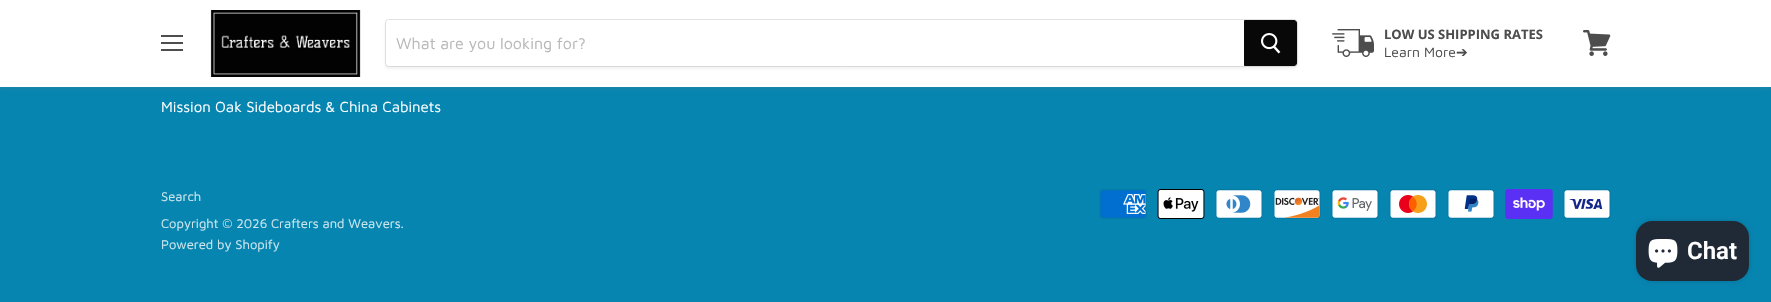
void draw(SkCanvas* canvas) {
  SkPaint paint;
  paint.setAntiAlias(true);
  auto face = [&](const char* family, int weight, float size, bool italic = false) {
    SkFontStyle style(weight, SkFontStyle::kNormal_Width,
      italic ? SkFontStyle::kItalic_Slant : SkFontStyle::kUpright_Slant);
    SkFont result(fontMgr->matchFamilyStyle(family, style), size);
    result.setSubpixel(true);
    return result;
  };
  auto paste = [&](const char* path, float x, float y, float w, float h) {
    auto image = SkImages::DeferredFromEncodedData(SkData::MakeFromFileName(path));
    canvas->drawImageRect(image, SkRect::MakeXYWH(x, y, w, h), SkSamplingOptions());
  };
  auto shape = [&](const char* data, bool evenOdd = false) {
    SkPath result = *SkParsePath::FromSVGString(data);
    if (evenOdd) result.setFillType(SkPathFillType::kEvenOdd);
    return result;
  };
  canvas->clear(0xff0685b0);
  paint.setColor(0x407f7f7f);
  paint.setMaskFilter(SkMaskFilter::MakeBlur(kNormal_SkBlurStyle, 2));
  canvas->drawRect(SkRect::MakeXYWH(0, 1, 1771, 87), paint);
  paint.setMaskFilter(nullptr);
  {
    const struct { float x, y, w, h; SkColor color; } items[] = {
      {0, 0, 1771, 87, 0xffffffff},
      {161, 35, 22, 2, 0xff4d4d4d},
      {161, 42, 22, 2, 0xff4d4d4d},
      {161, 49, 22, 2, 0xff4d4d4d},
    };
    for (auto [x, y, w, h, color] : items) {
      paint.setColor(color);
      canvas->drawRect(SkRect::MakeXYWH(x, y, w, h), paint);
    }
  }
  paste("img/1.png", 210, 10, 151, 67);
  paint.setColor(0x1c7f7f7f);
  paint.setMaskFilter(SkMaskFilter::MakeBlur(kNormal_SkBlurStyle, 1.5f));
  canvas->drawRoundRect(SkRect::MakeXYWH(385, 21, 913, 48), 4, 4, paint);
  paint.setMaskFilter(nullptr);
  paint.setStroke(true);
  paint.setStrokeWidth(1);
  paint.setColor(0x337f7f7f);
  canvas->drawRoundRect(SkRect::MakeXYWH(385.5f, 19.5f, 912, 47), 3.5f, 3.5f, paint);
  paint.setStroke(false);
  paint.setColor(0xffffffff);
  canvas->drawPath(shape("M389 20H1244V66H389C387.5 66 386 64.5 386 63V23C386 21.5 387.5 20 389 20Z"), paint);
  paint.setColor(0xff080808);
  canvas->drawPath(shape("M1244.5 20.5H1294C1295.5 20.5 1296.5 21.5 1296.5 23V63C1296.5 64.5 1295.5 65.5 1294 65.5H1244.5Z"), paint);
  paint.setStroke(true);
  canvas->drawPath(shape("M1244.5 20.5H1294C1295.5 20.5 1296.5 21.5 1296.5 23V63C1296.5 64.5 1295.5 65.5 1294 65.5H1244.5Z"), paint);
  paste("img/2.png", 1261, 33, 20, 21);
  paste("img/3.png", 1332, 29, 42, 28);
  paste("img/4.png", 1583, 30, 28, 26);
  paste("img/5.png", 1099, 189, 48, 30);
  paste("img/6.png", 1157, 189, 48, 30);
  paste("img/7.png", 1215, 189, 48, 30);
  paste("img/8.png", 1273, 189, 48, 30);
  paste("img/9.png", 1331, 189, 48, 30);
  paste("img/10.png", 1389, 189, 48, 30);
  paste("img/11.png", 1447, 189, 48, 30);
  paste("img/12.png", 1505, 189, 48, 30);
  paste("img/13.png", 1563, 189, 48, 30);
  paint.setStroke(false);
  paint.setColor(0x26000000);
  paint.setMaskFilter(SkMaskFilter::MakeBlur(kNormal_SkBlurStyle, 2.5f));
  canvas->drawRoundRect(SkRect::MakeXYWH(1636, 221, 113, 60), 16, 16, paint);
  paint.setMaskFilter(nullptr);
  paint.setColor(0xff202a36);
  canvas->drawRoundRect(SkRect::MakeXYWH(1636, 221, 113, 60), 16, 16, paint);
  paste("img/14.png", 1648, 239, 30, 29);
  auto f0 = face("Maven Pro", 400, 16);
  paint.setColor(0xffb8b8b8);
  canvas->drawString("What are you looking for?", 396, 49, f0, paint);
  auto f1 = face("Open Sans", 700, 13);
  paint.setColor(0xff4d4d4d);
  canvas->drawString("LOW US SHIPPING RATES", 1384, 39, f1, paint);
  auto f2 = face("Maven Pro", 400, 14);
  canvas->drawString("Learn More", 1384, 57, f2, paint);
  auto f3 = face("DejaVu Sans", 400, 14);
  canvas->drawString("➔", 1456, 57, f3, paint);
  auto f4 = face("Maven Pro", 400, 15);
  paint.setColor(0xffffffff);
  canvas->drawString("Mission Oak Sideboards & China Cabinets", 161, 112, f4, paint);
  auto f5 = face("Maven Pro", 400, 13);
  paint.setColor(0xffcde7ef);
  {
    const struct { const char* s; float x, y; } items[] = {
      {"Search", 161, 201},
      {"Copyright © 2026 Crafters and Weavers.", 161, 228},
      {"Powered by Shopify", 161, 249},
    };
    for (auto [s, x, y] : items) {
      canvas->drawString(s, x, y, f5, paint);
    }
  }
  auto f6 = face("Roboto", 600, 24);
  paint.setColor(0xffffffff);
  canvas->drawString("Chat", 1687, 259, f6, paint);
}
